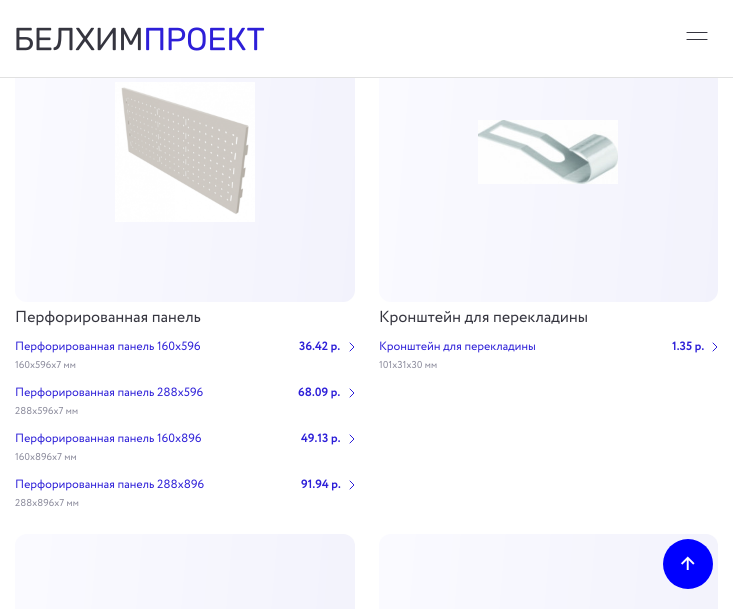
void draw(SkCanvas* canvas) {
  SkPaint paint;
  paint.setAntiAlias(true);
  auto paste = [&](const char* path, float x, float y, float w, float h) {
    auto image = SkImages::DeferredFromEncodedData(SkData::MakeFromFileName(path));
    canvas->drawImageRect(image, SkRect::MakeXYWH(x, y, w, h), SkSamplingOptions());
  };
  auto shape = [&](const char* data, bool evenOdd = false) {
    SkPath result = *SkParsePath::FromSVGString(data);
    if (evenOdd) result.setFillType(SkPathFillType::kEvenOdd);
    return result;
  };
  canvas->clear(0xffffffff);
  {
    const SkColor colors[] = {0xfffafaff, 0xfff2f2fc};
    const float stops[] = {0.04f, 1};
    const SkPoint ends[] = {{3.5f, 136}, {376, 168}};
    paint.setShader(SkGradientShader::MakeLinear(ends, colors, stops, 2, SkTileMode::kClamp));
    paint.setAlpha(255);
  }
  canvas->drawRoundRect(SkRect::MakeXYWH(15, 2, 340, 300), 12, 12, paint);
  {
    const SkColor colors[] = {0xfffafaff, 0xfff2f2fc};
    const float stops[] = {0.04f, 1};
    const SkPoint ends[] = {{367, 137}, {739, 168}};
    paint.setShader(SkGradientShader::MakeLinear(ends, colors, stops, 2, SkTileMode::kClamp));
    paint.setAlpha(255);
  }
  canvas->drawRoundRect(SkRect::MakeXYWH(379, 2, 339, 300), 12, 12, paint);
  paint.setShader(nullptr);
  paint.setColor(0xffffffff);
  canvas->drawRect(SkRect::MakeXYWH(15, 2, 703, 75), paint);
  paint.setColor(0xffe1e1e1);
  canvas->drawRect(SkRect::MakeXYWH(0, 77, 733, 1), paint);
  paste("img/1.png", 16, 27, 249, 24);
  paint.setStroke(true);
  paint.setStrokeWidth(1.2f);
  paint.setStrokeCap(SkPaint::kRound_Cap);
  paint.setColor(0xff35353f);
  canvas->drawPath(shape("M687 39.5H707M687 32.5H707"), paint);
  paste("img/2.png", 115, 82, 140, 140);
  paste("img/3.png", 16, 310, 185, 16);
  paste("img/4.png", 16, 341, 184, 12);
  paste("img/5.png", 299, 341, 41, 12);
  paint.setStrokeWidth(1);
  paint.setStrokeJoin(SkPaint::kRound_Join);
  paint.setColor(0xff2d1fd8);
  canvas->drawPath(shape("M350 343L354 347L350 351"), paint);
  paste("img/6.png", 15, 360, 61, 9);
  paste("img/7.png", 16, 387, 187, 12);
  paste("img/8.png", 298, 387, 42, 12);
  canvas->drawPath(shape("M350 389L354 393L350 397"), paint);
  paste("img/9.png", 15, 406, 63, 9);
  paste("img/10.png", 16, 433, 185, 12);
  paste("img/11.png", 301, 433, 39, 12);
  canvas->drawPath(shape("M350 435L354 439L350 443"), paint);
  paste("img/12.png", 15, 452, 61, 9);
  paste("img/13.png", 16, 479, 188, 12);
  paste("img/14.png", 301, 479, 40, 12);
  canvas->drawPath(shape("M350 481L354 485L350 489"), paint);
  paste("img/15.png", 15, 498, 64, 9);
  paste("img/16.png", 478, 120, 140, 64);
  paste("img/17.png", 380, 310, 207, 16);
  paste("img/18.png", 380, 341, 155, 12);
  paste("img/19.png", 672, 341, 32, 12);
  canvas->drawPath(shape("M713 343L717 347L713 351"), paint);
  paste("img/20.png", 379, 360, 58, 9);
  paint.setStroke(false);
  {
    const SkColor colors[] = {0xfffafaff, 0xfff2f2fc};
    const float stops[] = {0.04f, 1};
    const SkPoint ends[] = {{3.5f, 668}, {376, 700}};
    paint.setShader(SkGradientShader::MakeLinear(ends, colors, stops, 2, SkTileMode::kClamp));
    paint.setAlpha(255);
  }
  canvas->drawRoundRect(SkRect::MakeXYWH(15, 534, 340, 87), 12, 12, paint);
  {
    const SkColor colors[] = {0xfffafaff, 0xfff2f2fc};
    const float stops[] = {0.04f, 1};
    const SkPoint ends[] = {{367, 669}, {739, 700}};
    paint.setShader(SkGradientShader::MakeLinear(ends, colors, stops, 2, SkTileMode::kClamp));
    paint.setAlpha(255);
  }
  canvas->drawRoundRect(SkRect::MakeXYWH(379, 534, 339, 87), 12, 12, paint);
  paint.setShader(nullptr);
  paint.setColor(0xff0000ff);
  canvas->drawCircle(688, 564, 25, paint);
  paste("img/21.png", 681, 556, 14, 14);
}
